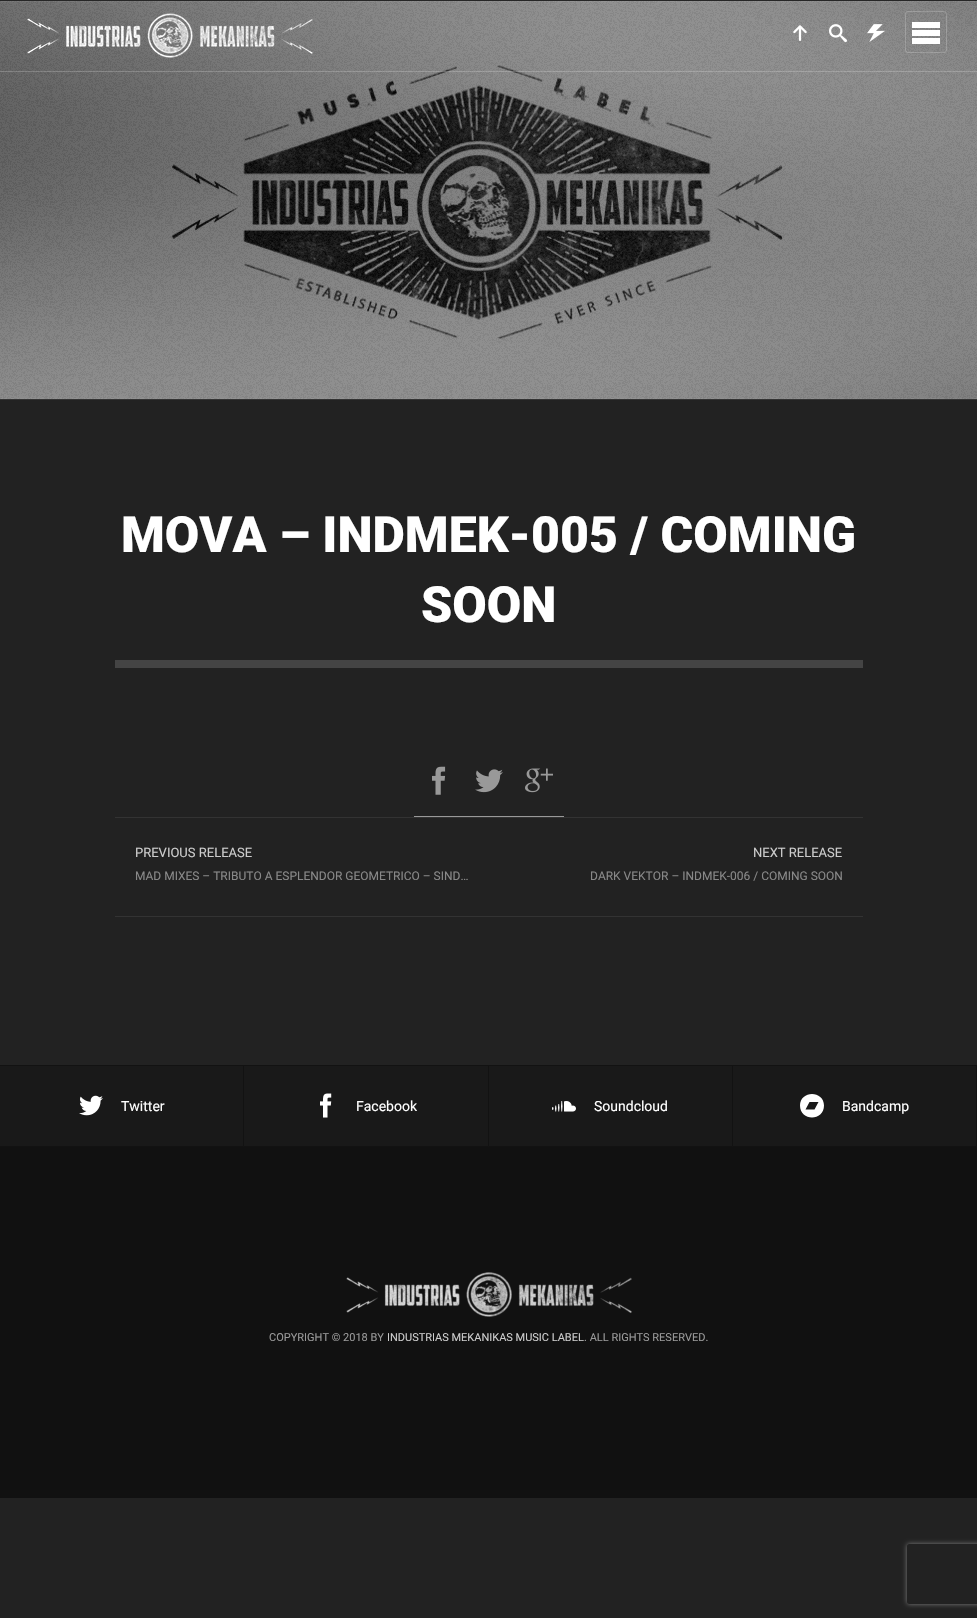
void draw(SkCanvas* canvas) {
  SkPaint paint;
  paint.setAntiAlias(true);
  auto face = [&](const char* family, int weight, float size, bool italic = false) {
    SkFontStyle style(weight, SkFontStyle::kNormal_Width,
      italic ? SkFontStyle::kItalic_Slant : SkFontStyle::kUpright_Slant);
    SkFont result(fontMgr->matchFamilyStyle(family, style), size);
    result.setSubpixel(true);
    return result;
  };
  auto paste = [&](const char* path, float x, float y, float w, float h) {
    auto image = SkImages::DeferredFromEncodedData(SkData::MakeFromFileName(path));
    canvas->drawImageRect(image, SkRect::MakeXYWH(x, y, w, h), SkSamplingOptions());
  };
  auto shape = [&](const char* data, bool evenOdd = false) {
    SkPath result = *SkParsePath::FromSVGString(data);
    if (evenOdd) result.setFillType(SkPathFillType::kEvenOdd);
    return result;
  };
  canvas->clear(0xff222222);
  paste("img/6.png", 0, 1, 977, 398);
  paste("img/7.png", 0, 1, 977, 398);
  paint.setColor(0x33ffffff);
  canvas->drawRect(SkRect::MakeXYWH(0, 71, 977, 1), paint);
  paste("img/1.png", 27, 13, 286, 45);
  paste("img/2.png", 793, 25, 14, 16);
  paste("img/3.png", 829, 24, 18, 19);
  paste("img/4.png", 867, 24, 18, 18);
  paint.setStroke(true);
  paint.setStrokeWidth(1);
  canvas->drawRoundRect(SkRect::MakeXYWH(905.5f, 11.5f, 41, 41), 2.5f, 2.5f, paint);
  paste("img/5.png", 912, 22, 28, 22);
  paint.setStroke(false);
  {
    const struct { float x, y, w, h; SkColor color; } items[] = {
      {0, 0, 977, 1, 0xff262626},
      {0, 399, 977, 1, 0xff333333},
      {115, 660, 748, 8, 0xff444444},
      {115, 817, 748, 1, 0xff333333},
      {414, 816, 150, 1, 0xff999999},
    };
    for (auto [x, y, w, h, color] : items) {
      paint.setColor(color);
      canvas->drawRect(SkRect::MakeXYWH(x, y, w, h), paint);
    }
  }
  paste("img/8.png", 432, 766, 14, 29);
  paste("img/9.png", 475, 769, 28, 24);
  paste("img/10.png", 525, 768, 28, 25);
  {
    const struct { float x, y, w, h; SkColor color; } items[] = {
      {115, 916, 748, 1, 0xff333333},
      {0, 1066, 977, 81, 0xff191919},
      {0, 1065, 977, 1, 0xff121212},
    };
    for (auto [x, y, w, h, color] : items) {
      paint.setColor(color);
      canvas->drawRect(SkRect::MakeXYWH(x, y, w, h), paint);
    }
  }
  canvas->drawPath(shape("M244 1066V1147L243 1146V1066Z"), paint);
  paint.setColor(0x4d000000);
  canvas->drawPath(shape("M244 1147H0V1146H243Z"), paint);
  paste("img/11.png", 79, 1095, 24, 21);
  paint.setColor(0xff121212);
  canvas->drawPath(shape("M489 1066V1147L488 1146V1066Z"), paint);
  paint.setColor(0x4d000000);
  canvas->drawPath(shape("M489 1147H244V1146H488Z"), paint);
  paste("img/12.png", 320, 1093, 12, 25);
  paint.setColor(0xff121212);
  canvas->drawPath(shape("M733 1066V1147L732 1146V1066Z"), paint);
  paint.setColor(0x4d000000);
  canvas->drawPath(shape("M733 1147H489V1146H732Z"), paint);
  paste("img/13.png", 552, 1101, 24, 11);
  paint.setColor(0xff121212);
  canvas->drawPath(shape("M977 1066V1147L976 1146V1066Z"), paint);
  paint.setColor(0x4d000000);
  canvas->drawPath(shape("M977 1147H733V1146H976Z"), paint);
  paint.setColor(0xffffffff);
  canvas->drawPath(shape("M814.5 1109.5L818.5 1102H809.5L805.5 1109.5ZM824 1105.5C824 1121.5 800 1121.5 800 1105.5C800 1090 824 1090 824 1105.5Z"), paint);
  paint.setColor(0xff111111);
  canvas->drawRect(SkRect::MakeXYWH(0, 1147, 977, 351), paint);
  paste("img/14.png", 346, 1272, 286, 45);
  canvas->save();
  canvas->clipPath(shape("M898 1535H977V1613H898ZM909 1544H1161C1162 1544 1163 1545 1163 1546V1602C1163 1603 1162 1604 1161 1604H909C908 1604 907 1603 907 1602V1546C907 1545 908 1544 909 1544Z", true), true);
  paint.setColor(0xff808080);
  paint.setMaskFilter(SkMaskFilter::MakeBlur(kNormal_SkBlurStyle, 2.5f));
  canvas->drawRoundRect(SkRect::MakeXYWH(907, 1544, 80, 60), 2, 2, paint);
  paint.setMaskFilter(nullptr);
  canvas->restore();
  auto f0 = face("Roboto", 900, 50);
  paint.setColor(0xffffffff);
  canvas->drawString("MOVA – INDMEK-005 / COMING", 121, 552, f0, paint);
  canvas->drawString("SOON", 421, 622, f0, paint);
  auto f1 = face("Roboto", 400, 13);
  paint.setColor(0xffcccccc);
  canvas->drawString("PREVIOUS RELEASE", 135, 857, f1, paint);
  auto f2 = face("Roboto", 400, 12);
  paint.setColor(0xff888888);
  canvas->drawString("MAD MIXES – TRIBUTO A ESPLENDOR GEOMETRICO – SIND…", 135, 880, f2, paint);
  paint.setColor(0xffcccccc);
  canvas->drawString("NEXT RELEASE", 753, 857, f1, paint);
  paint.setColor(0xff888888);
  canvas->drawString("DARK VEKTOR – INDMEK-006 / COMING SOON", 590, 880, f2, paint);
  auto f3 = face("Roboto", 400, 14);
  paint.setColor(0xffffffff);
  {
    const struct { const char* s; float x, y; } items[] = {
      {"Twitter", 121, 1111},
      {"Facebook", 356, 1111},
      {"Soundcloud", 594, 1111},
      {"Bandcamp", 842, 1111},
    };
    for (auto [s, x, y] : items) {
      canvas->drawString(s, x, y, f3, paint);
    }
  }
  auto f4 = face("Roboto", 400, 11);
  paint.setColor(0xff999999);
  canvas->drawString("COPYRIGHT © 2018 BY", 269, 1341, f4, paint);
  paint.setColor(0xffcccccc);
  canvas->drawString("INDUSTRIAS MEKANIKAS MUSIC LABEL", 387, 1341, f4, paint);
  paint.setColor(0xff999999);
  canvas->drawString(". ALL RIGHTS RESERVED.", 584, 1341, f4, paint);
}
